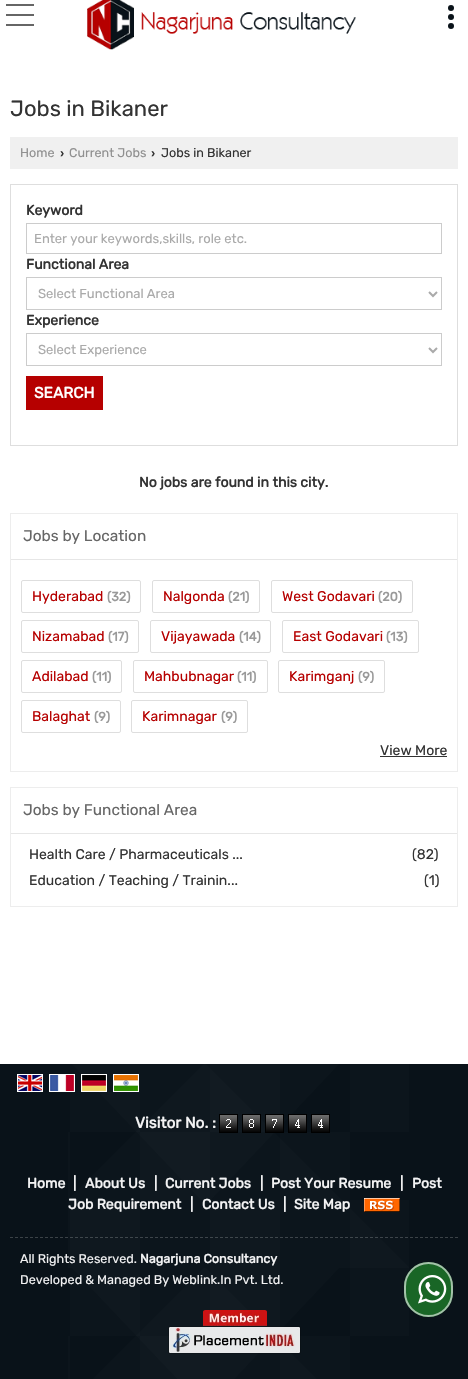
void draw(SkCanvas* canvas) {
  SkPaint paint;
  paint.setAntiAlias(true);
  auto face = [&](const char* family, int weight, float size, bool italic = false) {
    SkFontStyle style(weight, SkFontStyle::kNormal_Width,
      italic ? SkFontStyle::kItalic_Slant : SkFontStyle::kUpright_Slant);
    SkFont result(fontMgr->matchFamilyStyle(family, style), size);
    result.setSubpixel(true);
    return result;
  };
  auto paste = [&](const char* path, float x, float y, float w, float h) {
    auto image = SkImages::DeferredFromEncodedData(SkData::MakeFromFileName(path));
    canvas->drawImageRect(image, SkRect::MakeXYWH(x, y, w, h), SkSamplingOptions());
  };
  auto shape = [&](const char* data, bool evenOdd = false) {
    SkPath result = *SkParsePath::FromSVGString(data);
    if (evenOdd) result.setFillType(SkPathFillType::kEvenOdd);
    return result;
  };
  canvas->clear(0xffffffff);
  {
    const struct { float x, y, w, h; SkColor color; } items[] = {
      {6, 14, 28, 2, 0xff666666},
      {6, 4, 28, 2, 0xff666666},
      {6, 24, 28, 2, 0xff666666},
    };
    for (auto [x, y, w, h, color] : items) {
      paint.setColor(color);
      canvas->drawRect(SkRect::MakeXYWH(x, y, w, h), paint);
    }
  }
  paste("img/1.png", 87, 0, 269, 50);
  paint.setColor(0xff091219);
  canvas->drawCircle(451, 17, 3, paint);
  canvas->drawCircle(451, 8, 3, paint);
  canvas->drawCircle(451, 26, 3, paint);
  paint.setColor(0xfff0f0f0);
  canvas->drawRect(SkRect::MakeXYWH(10, 137, 448, 32), paint);
  paint.setStroke(true);
  paint.setStrokeWidth(1);
  paint.setColor(0xffdedede);
  canvas->drawRect(SkRect::MakeXYWH(10.5f, 184.5f, 447, 261), paint);
  paint.setColor(0xffcccccc);
  canvas->drawRect(SkRect::MakeXYWH(26.5f, 223.5f, 415, 30), paint);
  canvas->drawRect(SkRect::MakeXYWH(26.5f, 277.5f, 415, 32), paint);
  paint.setStrokeWidth(2);
  paint.setColor(0xffaaaaaa);
  canvas->drawPath(shape("M429 292L433 296L437 292"), paint);
  paint.setStrokeWidth(1);
  paint.setColor(0xffcccccc);
  canvas->drawRect(SkRect::MakeXYWH(26.5f, 333.5f, 415, 32), paint);
  paint.setStrokeWidth(2);
  paint.setColor(0xffaaaaaa);
  canvas->drawPath(shape("M429 348L433 352L437 348"), paint);
  paint.setStroke(false);
  paint.setColor(0xffb60000);
  canvas->drawRect(SkRect::MakeXYWH(26, 376, 77, 34), paint);
  paint.setStroke(true);
  paint.setStrokeWidth(1);
  paint.setColor(0xffededed);
  canvas->drawRect(SkRect::MakeXYWH(10.5f, 513.5f, 447, 258), paint);
  paint.setStroke(false);
  paint.setColor(0xffe6e6e6);
  canvas->drawRect(SkRect::MakeXYWH(11, 559, 446, 1), paint);
  paint.setStroke(true);
  paint.setColor(0xffdedede);
  canvas->drawRoundRect(SkRect::MakeXYWH(21.5f, 580.5f, 119, 32), 1.5f, 1.5f, paint);
  canvas->drawRoundRect(SkRect::MakeXYWH(152.5f, 580.5f, 107, 32), 1.5f, 1.5f, paint);
  canvas->drawRoundRect(SkRect::MakeXYWH(271.5f, 580.5f, 141, 32), 1.5f, 1.5f, paint);
  canvas->drawRoundRect(SkRect::MakeXYWH(21.5f, 620.5f, 117, 32), 1.5f, 1.5f, paint);
  canvas->drawRoundRect(SkRect::MakeXYWH(150.5f, 620.5f, 120, 32), 1.5f, 1.5f, paint);
  canvas->drawRoundRect(SkRect::MakeXYWH(282.5f, 620.5f, 136, 32), 1.5f, 1.5f, paint);
  canvas->drawRoundRect(SkRect::MakeXYWH(21.5f, 660.5f, 100, 32), 1.5f, 1.5f, paint);
  canvas->drawRoundRect(SkRect::MakeXYWH(133.5f, 660.5f, 134, 32), 1.5f, 1.5f, paint);
  canvas->drawRoundRect(SkRect::MakeXYWH(278.5f, 660.5f, 106, 32), 1.5f, 1.5f, paint);
  canvas->drawRoundRect(SkRect::MakeXYWH(21.5f, 700.5f, 99, 32), 1.5f, 1.5f, paint);
  canvas->drawRoundRect(SkRect::MakeXYWH(131.5f, 700.5f, 116, 32), 1.5f, 1.5f, paint);
  paint.setStroke(false);
  paint.setColor(0xff333333);
  canvas->drawRect(SkRect::MakeXYWH(380, 756, 67, 1), paint);
  paint.setStroke(true);
  paint.setColor(0xffededed);
  canvas->drawRect(SkRect::MakeXYWH(10.5f, 787.5f, 447, 119), paint);
  paint.setStroke(false);
  paint.setColor(0xffe6e6e6);
  canvas->drawRect(SkRect::MakeXYWH(11, 833, 446, 1), paint);
  paint.setColor(0xff091219);
  canvas->drawRect(SkRect::MakeXYWH(0, 1064, 468, 315), paint);
  paste("img/2.png", 68, 1064, 341, 315);
  paint.setStroke(true);
  paint.setColor(0xffffffff);
  canvas->drawRect(SkRect::MakeXYWH(17.5f, 1074.5f, 25, 17), paint);
  canvas->drawRect(SkRect::MakeXYWH(49.5f, 1074.5f, 25, 17), paint);
  canvas->drawRect(SkRect::MakeXYWH(81.5f, 1074.5f, 25, 17), paint);
  canvas->drawRect(SkRect::MakeXYWH(113.5f, 1074.5f, 25, 17), paint);
  paste("img/3.png", 18, 1075, 24, 16);
  paste("img/4.png", 50, 1075, 24, 16);
  paste("img/5.png", 82, 1075, 24, 16);
  paste("img/6.png", 114, 1075, 24, 16);
  paste("img/7.png", 219, 1114, 19, 19);
  paste("img/8.png", 242, 1114, 19, 19);
  paste("img/9.png", 265, 1114, 19, 19);
  paste("img/10.png", 288, 1114, 19, 19);
  paste("img/10.png", 311, 1114, 19, 19);
  paste("img/11.png", 364, 1198, 36, 14);
  paint.setColor(0x33ffffff);
  paint.setPathEffect(SkDashPathEffect::Make({{3, 2}}, 0));
  canvas->drawPath(shape("M10 1237.5H458"), paint);
  paint.setPathEffect(nullptr);
  paste("img/12.png", 168, 1310, 133, 44);
  paint.setStroke(false);
  paint.setColor(0xff196626);
  canvas->drawRoundRect(SkRect::MakeXYWH(404, 1262, 49, 55), 24.5f, 24.5f, paint);
  paint.setStroke(true);
  paint.setStrokeWidth(2);
  paint.setColor(0x99ffffff);
  canvas->drawRoundRect(SkRect::MakeXYWH(405, 1263, 47, 53), 23.5f, 23.5f, paint);
  paste("img/13.png", 418, 1275, 29, 29);
  auto f0 = face("Rubik", 300, 22);
  paint.setStroke(false);
  paint.setColor(0xff333333);
  canvas->drawString("Jobs in Bikaner", 10, 116, f0, paint);
  auto f1 = face("Rubik", 300, 12.6f);
  paint.setColor(0xff909090);
  canvas->drawString("Home", 20, 157, f1, paint);
  auto f2 = face("Liberation Sans", 700, 12.6f);
  paint.setColor(0xff333333);
  canvas->drawString("›", 60, 157, f2, paint);
  paint.setColor(0xff909090);
  canvas->drawString("Current Jobs", 69, 157, f1, paint);
  paint.setColor(0xff333333);
  canvas->drawString("›", 151, 157, f2, paint);
  canvas->drawString("Jobs in Bikaner", 161, 157, f1, paint);
  auto f3 = face("Rubik", 700, 14);
  canvas->drawString("Keyword", 26, 215, f3, paint);
  auto f4 = face("Rubik", 300, 13);
  paint.setColor(0xffaaaaaa);
  canvas->drawString("Enter your keywords,skills, role etc.", 34, 243, f4, paint);
  paint.setColor(0xff333333);
  canvas->drawString("Functional Area", 26, 269, f3, paint);
  paint.setColor(0xffaaaaaa);
  canvas->drawString("Select Functional Area", 38, 298, f4, paint);
  paint.setColor(0xff333333);
  canvas->drawString("Experience", 26, 325, f3, paint);
  paint.setColor(0xffaaaaaa);
  canvas->drawString("Select Experience", 38, 354, f4, paint);
  auto f5 = face("Rubik", 700, 15.4f);
  paint.setColor(0xffffffff);
  canvas->drawString("SEARCH", 34, 398, f5, paint);
  paint.setColor(0xff333333);
  canvas->drawString("No jobs are found in this city.", 139, 487, f3, paint);
  auto f6 = face("Rubik", 300, 15.4f);
  paint.setColor(0xff666666);
  canvas->drawString("Jobs by Location", 23, 541, f6, paint);
  auto f7 = face("Rubik", 300, 14);
  paint.setColor(0xffb60000);
  canvas->drawString("Hyderabad", 32, 601, f7, paint);
  auto f8 = face("Rubik", 700, 12.6f);
  paint.setColor(0xff999999);
  canvas->drawString("(32)", 107, 601, f8, paint);
  paint.setColor(0xffb60000);
  canvas->drawString("Nalgonda", 163, 601, f7, paint);
  paint.setColor(0xff999999);
  canvas->drawString("(21)", 228, 601, f8, paint);
  paint.setColor(0xffb60000);
  canvas->drawString("West Godavari", 282, 601, f7, paint);
  paint.setColor(0xff999999);
  canvas->drawString("(20)", 378, 601, f8, paint);
  paint.setColor(0xffb60000);
  canvas->drawString("Nizamabad", 32, 641, f7, paint);
  paint.setColor(0xff999999);
  canvas->drawString("(17)", 108, 641, f8, paint);
  paint.setColor(0xffb60000);
  canvas->drawString("Vijayawada", 161, 641, f7, paint);
  paint.setColor(0xff999999);
  canvas->drawString("(14)", 239, 641, f8, paint);
  paint.setColor(0xffb60000);
  canvas->drawString("East Godavari", 293, 641, f7, paint);
  paint.setColor(0xff999999);
  canvas->drawString("(13)", 386, 641, f8, paint);
  paint.setColor(0xffb60000);
  canvas->drawString("Adilabad", 32, 681, f7, paint);
  paint.setColor(0xff999999);
  canvas->drawString("(11)", 92, 681, f8, paint);
  paint.setColor(0xffb60000);
  canvas->drawString("Mahbubnagar", 144, 681, f7, paint);
  paint.setColor(0xff999999);
  canvas->drawString("(11)", 237, 681, f8, paint);
  paint.setColor(0xffb60000);
  canvas->drawString("Karimganj", 289, 681, f7, paint);
  paint.setColor(0xff999999);
  canvas->drawString("(9)", 358, 681, f8, paint);
  paint.setColor(0xffb60000);
  canvas->drawString("Balaghat", 32, 721, f7, paint);
  paint.setColor(0xff999999);
  canvas->drawString("(9)", 94, 721, f8, paint);
  paint.setColor(0xffb60000);
  canvas->drawString("Karimnagar", 142, 721, f7, paint);
  paint.setColor(0xff999999);
  canvas->drawString("(9)", 221, 721, f8, paint);
  paint.setColor(0xff333333);
  canvas->drawString("View More", 380, 755, f7, paint);
  paint.setColor(0xff666666);
  canvas->drawString("Jobs by Functional Area", 23, 815, f6, paint);
  paint.setColor(0xff333333);
  {
    const struct { const char* s; float x, y; } items[] = {
      {"Health Care / Pharmaceuticals ...", 29, 859},
      {"(82)", 412, 859},
      {"Education / Teaching / Trainin...", 29, 885},
      {"(1)", 424, 885},
    };
    for (auto [s, x, y] : items) {
      canvas->drawString(s, x, y, f7, paint);
    }
  }
  paint.setColor(0xfff3f3f4);
  canvas->drawString("Visitor No. :", 135, 1128, f5, paint);
  {
    const struct { const char* s; float x, y; } items[] = {
      {"Home", 27, 1188},
      {"|", 73, 1188},
      {"About Us", 85, 1188},
      {"|", 154, 1188},
      {"Current Jobs", 165, 1188},
      {"|", 260, 1188},
      {"Post Your Resume", 271, 1188},
      {"|", 400, 1188},
      {"Post", 412, 1188},
      {"Job Requirement", 68, 1209},
      {"|", 190, 1209},
      {"Contact Us", 202, 1209},
      {"|", 283, 1209},
      {"Site Map", 294, 1209},
    };
    for (auto [s, x, y] : items) {
      canvas->drawString(s, x, y, f3, paint);
    }
  }
  canvas->drawString("All Rights Reserved.", 20, 1263, f1, paint);
  canvas->drawString("Nagarjuna Consultancy", 140, 1263, f8, paint);
  canvas->drawString("Developed & Managed By Weblink.In Pvt. Ltd.", 20, 1284, f1, paint);
}
